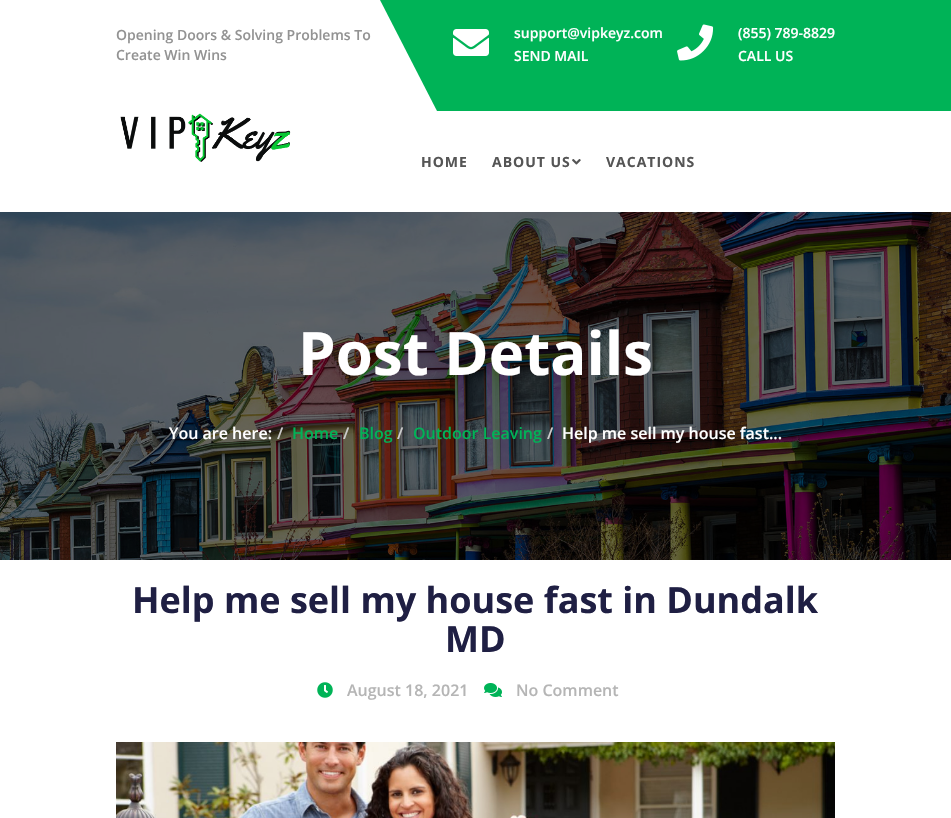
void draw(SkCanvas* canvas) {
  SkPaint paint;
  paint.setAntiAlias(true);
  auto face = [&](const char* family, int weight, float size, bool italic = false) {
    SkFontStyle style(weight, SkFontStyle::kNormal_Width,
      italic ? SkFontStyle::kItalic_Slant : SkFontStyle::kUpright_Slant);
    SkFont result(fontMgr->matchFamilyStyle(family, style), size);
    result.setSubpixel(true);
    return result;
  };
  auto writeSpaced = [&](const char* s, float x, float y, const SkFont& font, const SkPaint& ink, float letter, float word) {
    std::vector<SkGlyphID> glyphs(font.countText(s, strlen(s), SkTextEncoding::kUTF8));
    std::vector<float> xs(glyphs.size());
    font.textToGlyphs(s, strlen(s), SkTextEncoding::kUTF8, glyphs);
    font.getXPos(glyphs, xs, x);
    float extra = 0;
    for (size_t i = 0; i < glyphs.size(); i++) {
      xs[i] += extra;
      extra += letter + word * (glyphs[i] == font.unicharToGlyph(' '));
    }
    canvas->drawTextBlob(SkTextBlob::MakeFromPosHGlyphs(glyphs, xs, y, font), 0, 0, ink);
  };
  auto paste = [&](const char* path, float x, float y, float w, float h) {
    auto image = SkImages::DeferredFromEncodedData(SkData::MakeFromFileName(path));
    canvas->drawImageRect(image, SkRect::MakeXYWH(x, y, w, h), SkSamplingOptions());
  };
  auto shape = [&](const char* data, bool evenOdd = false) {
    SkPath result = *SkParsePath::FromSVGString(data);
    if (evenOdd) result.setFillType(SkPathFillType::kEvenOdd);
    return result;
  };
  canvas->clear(0xffffffff);
  paint.setColor(0xff00b357);
  canvas->drawPath(shape("M380 0L437 111H951V0Z"), paint);
  paste("img/1.png", 453, 29, 36, 27);
  paste("img/2.png", 677, 24, 37, 37);
  paste("img/3.png", 120, 113, 171, 49);
  paste("img/4.png", 572, 159, 9, 6);
  paste("img/5.png", 0, 212, 951, 348);
  paste("img/6.png", 317, 682, 16, 16);
  paste("img/7.png", 484, 683, 18, 14);
  paste("img/8.png", 116, 742, 719, 76);
  auto f0 = face("Open Sans", 600, 14);
  paint.setColor(0xff939393);
  canvas->drawString("Opening Doors & Solving Problems To", 116, 40, f0, paint);
  canvas->drawString("Create Win Wins", 116, 60, f0, paint);
  paint.setColor(0xffffffff);
  {
    const struct { const char* s; float x, y; } items[] = {
      {"support@vipkeyz.com", 514, 38},
      {"SEND MAIL", 514, 61},
      {"(855) 789-8829", 738, 38},
      {"CALL US", 738, 61},
    };
    for (auto [s, x, y] : items) {
      canvas->drawString(s, x, y, f0, paint);
    }
  }
  auto f1 = face("Open Sans", 700, 14);
  paint.setColor(0xff555555);
  {
    const struct { const char* s; float x, y; } items[] = {
      {"HOME", 421, 167},
      {"ABOUT US", 492, 167},
      {"VACATIONS", 606, 167},
    };
    for (auto [s, x, y] : items) {
      writeSpaced(s, x, y, f1, paint, 1, 0);
    }
  }
  auto f2 = face("Open Sans", 700, 60);
  paint.setColor(0xffffffff);
  canvas->drawString("Post Details", 298, 375, f2, paint);
  auto f3 = face("Open Sans", 600, 16);
  canvas->drawString("You are here:", 169, 439, f3, paint);
  paint.setColor(0xffcccccc);
  canvas->drawString("/", 277, 439, f3, paint);
  paint.setColor(0xff00b357);
  canvas->drawString("Home", 292, 439, f3, paint);
  paint.setColor(0xffcccccc);
  canvas->drawString("/", 343, 439, f3, paint);
  paint.setColor(0xff00b357);
  canvas->drawString("Blog", 359, 439, f3, paint);
  paint.setColor(0xffcccccc);
  canvas->drawString("/", 397, 439, f3, paint);
  paint.setColor(0xff00b357);
  canvas->drawString("Outdoor Leaving", 413, 439, f3, paint);
  paint.setColor(0xffcccccc);
  canvas->drawString("/", 547, 439, f3, paint);
  paint.setColor(0xffffffff);
  canvas->drawString("Help me sell my house fast...", 562, 439, f3, paint);
  auto f4 = face("Open Sans", 700, 36);
  paint.setColor(0xff1f1f43);
  canvas->drawString("Help me sell my house fast in Dundalk", 132, 613, f4, paint);
  canvas->drawString("MD", 445, 652, f4, paint);
  paint.setColor(0xffb5b5b5);
  canvas->drawString("August 18, 2021", 347, 696, f3, paint);
  canvas->drawString("No Comment", 516, 696, f3, paint);
}
